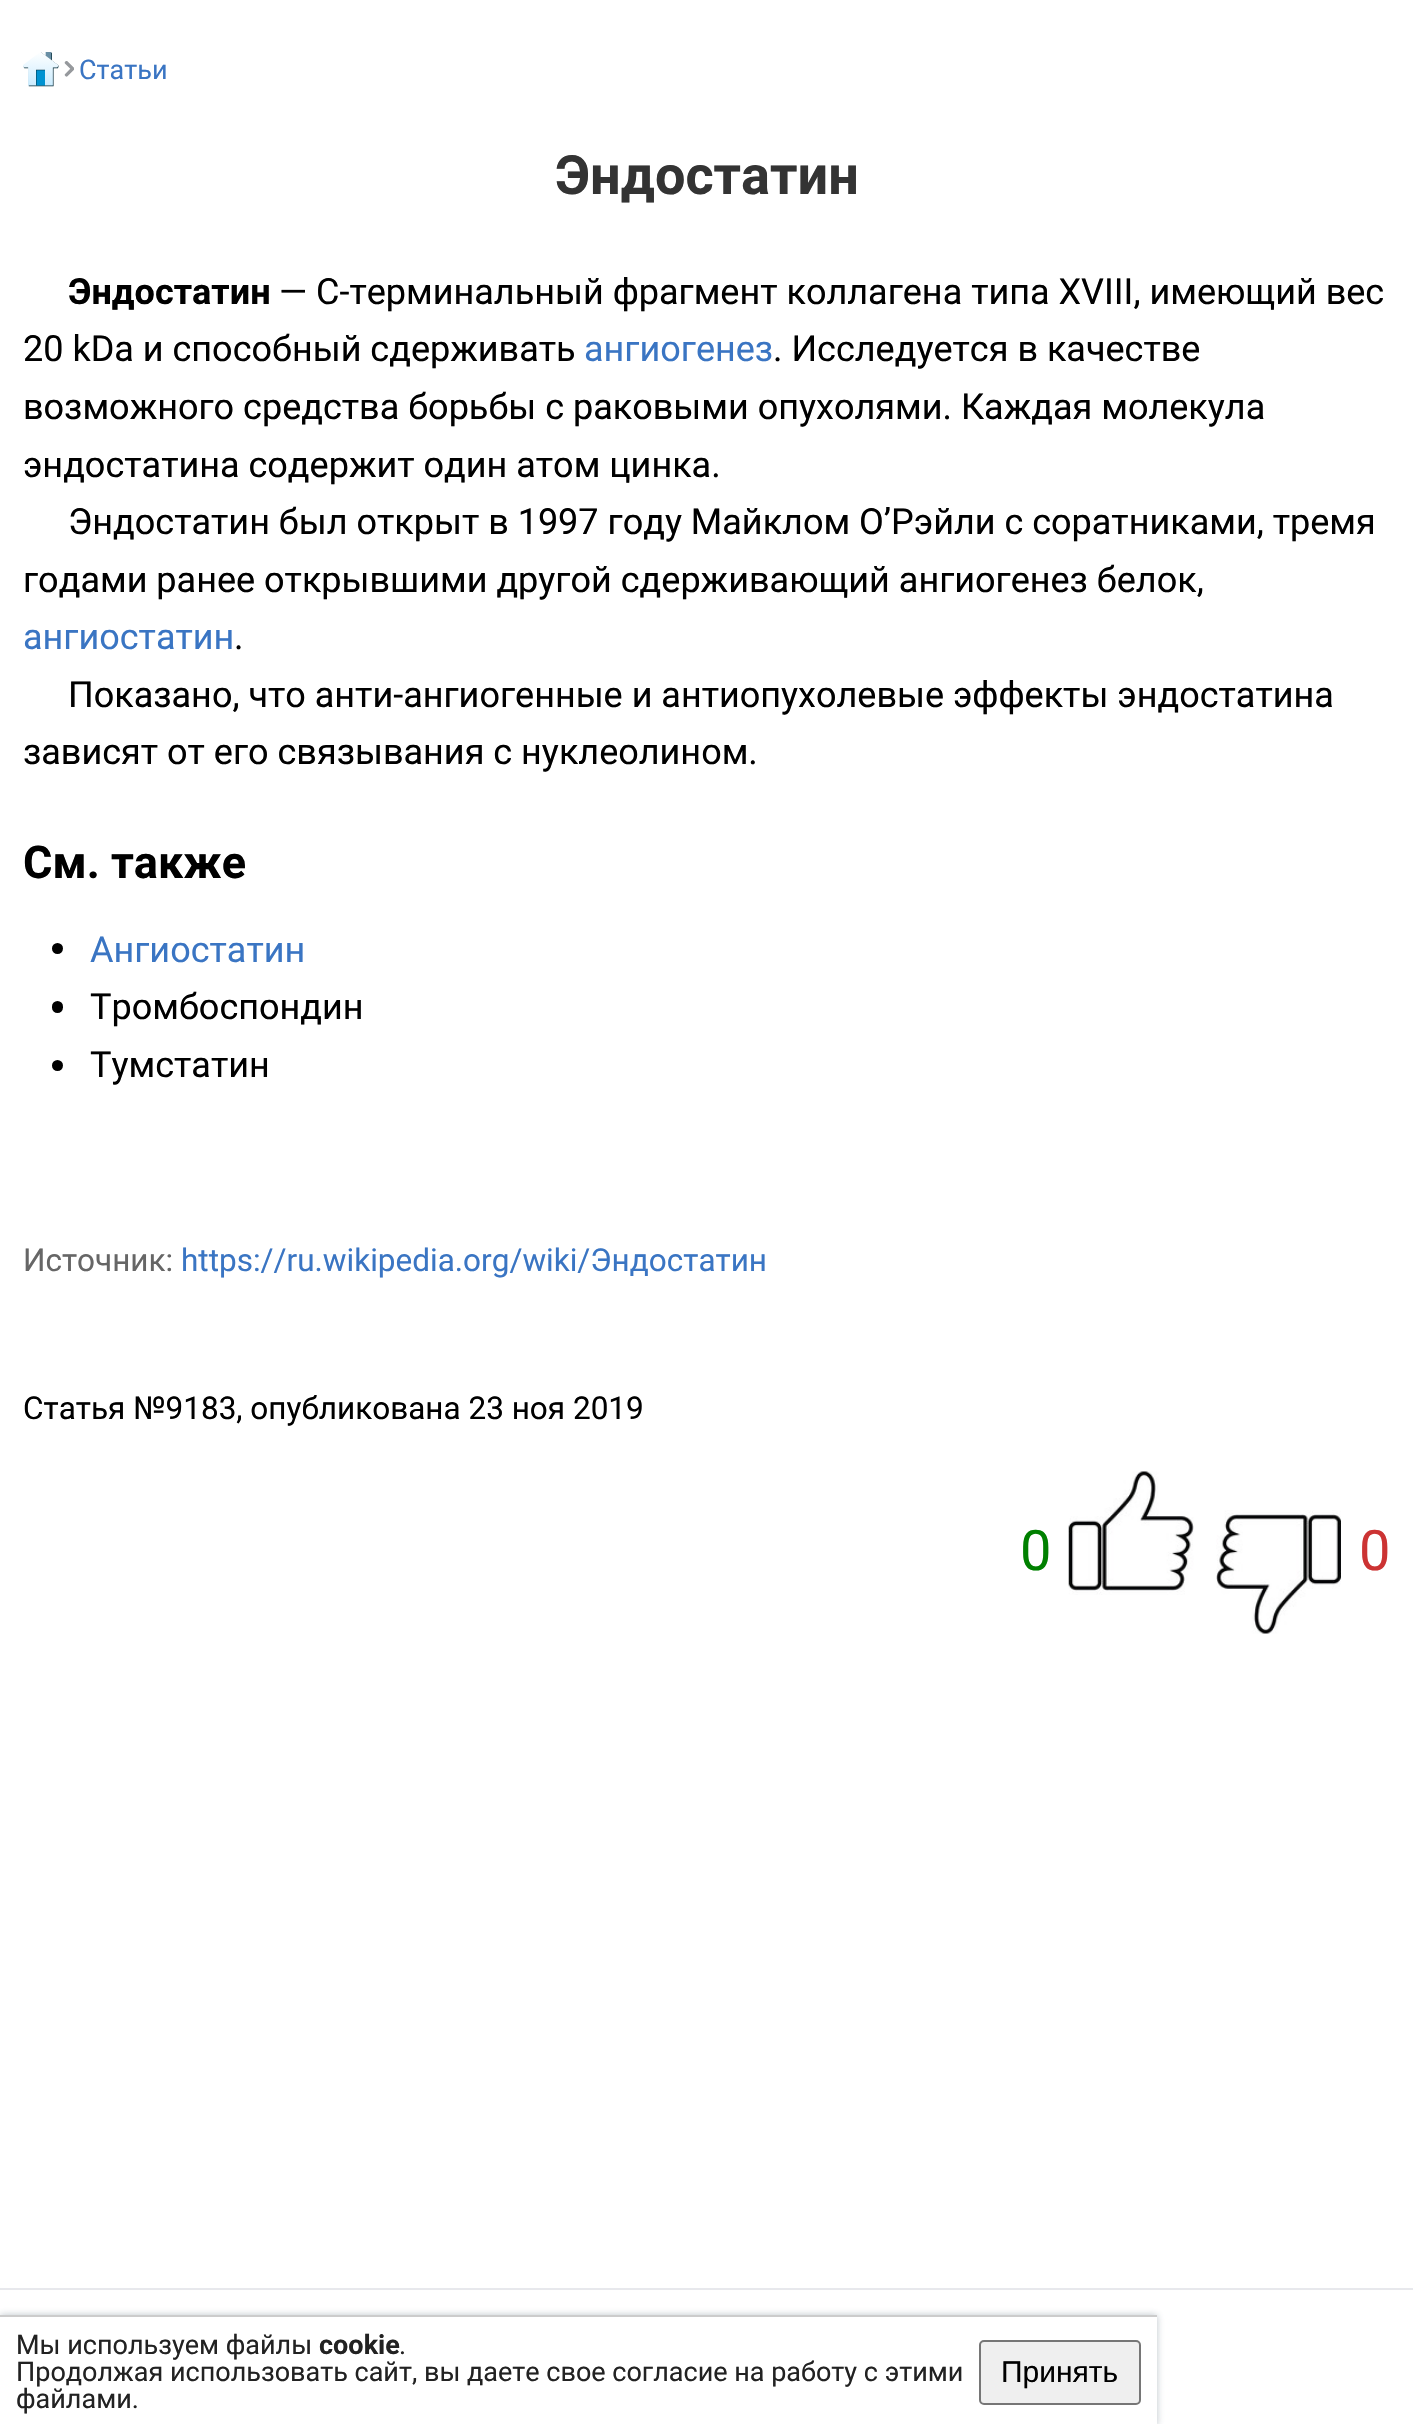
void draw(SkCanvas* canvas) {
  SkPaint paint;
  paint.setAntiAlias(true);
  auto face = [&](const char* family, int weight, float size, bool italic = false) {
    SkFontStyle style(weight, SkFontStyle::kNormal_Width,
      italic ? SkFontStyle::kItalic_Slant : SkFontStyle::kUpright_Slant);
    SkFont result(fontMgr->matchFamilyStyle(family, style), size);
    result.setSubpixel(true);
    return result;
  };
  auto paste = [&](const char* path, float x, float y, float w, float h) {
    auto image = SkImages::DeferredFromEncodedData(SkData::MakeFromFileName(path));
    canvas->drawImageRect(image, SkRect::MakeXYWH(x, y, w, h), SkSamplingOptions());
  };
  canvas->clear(0xffffffff);
  paste("img/1.png", 23, 52, 36, 35);
  paste("img/2.png", 64, 61, 10, 16);
  paint.setColor(0xff000000);
  canvas->drawCircle(57.5f, 948.5f, 5.5f, paint);
  canvas->drawRoundRect(SkRect::MakeXYWH(52, 1001, 11, 12), 5.5f, 5.5f, paint);
  canvas->drawCircle(57.5f, 1065.5f, 5.5f, paint);
  paste("img/3.png", 1068, 1471, 126, 124);
  paste("img/4.png", 1216, 1510, 125, 124);
  paint.setStroke(true);
  paint.setStrokeWidth(2);
  paint.setColor(0xffe7e8ec);
  canvas->drawRect(SkRect::MakeXYWH(-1, 2289, 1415, 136), paint);
  paint.setStroke(false);
  paint.setColor(0x4d223c50);
  paint.setMaskFilter(SkMaskFilter::MakeBlur(kNormal_SkBlurStyle, 3.5f));
  canvas->drawRect(SkRect::MakeXYWH(0, 2315, 1157, 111), paint);
  paint.setMaskFilter(nullptr);
  paint.setColor(0xffffffff);
  canvas->drawRect(SkRect::MakeXYWH(0, 2317, 1157, 107), paint);
  paint.setColor(0xffcccccc);
  canvas->drawRect(SkRect::MakeXYWH(0, 2315, 1157, 2), paint);
  paint.setColor(0xffefefef);
  canvas->drawRoundRect(SkRect::MakeXYWH(980, 2341, 160, 63), 4, 4, paint);
  paint.setStroke(true);
  paint.setColor(0xff767676);
  canvas->drawRoundRect(SkRect::MakeXYWH(980, 2341, 160, 63), 4, 4, paint);
  auto f0 = face("Roboto", 400, 27);
  paint.setStroke(false);
  paint.setColor(0xff3a75c3);
  canvas->drawString("Статьи", 79, 79, f0, paint);
  auto f1 = face("Roboto", 700, 54);
  paint.setColor(0xff333333);
  canvas->drawString("Эндостатин", 555, 194, f1, paint);
  auto f2 = face("Roboto", 700, 36);
  paint.setColor(0xff000000);
  canvas->drawString("Эндостатин", 68, 304, f2, paint);
  auto f3 = face("Roboto", 400, 36);
  canvas->drawString("— C-терминальный фрагмент коллагена типа XVIII, имеющий вес", 279, 304, f3, paint);
  canvas->drawString("20 kDa и способный сдерживать", 23, 361, f3, paint);
  paint.setColor(0xff3a75c3);
  canvas->drawString("ангиогенез", 584, 361, f3, paint);
  paint.setColor(0xff000000);
  {
    const struct { const char* s; float x, y; } items[] = {
      {". Исследуется в качестве", 773, 361},
      {"возможного средства борьбы с раковыми опухолями. Каждая молекула", 23, 419},
      {"эндостатина содержит один атом цинка.", 23, 477},
      {"Эндостатин был открыт в 1997 году Майклом О’Рэйли с соратниками, тремя", 68, 534},
      {"годами ранее открывшими другой сдерживающий ангиогенез белок,", 23, 592},
    };
    for (auto [s, x, y] : items) {
      canvas->drawString(s, x, y, f3, paint);
    }
  }
  paint.setColor(0xff3a75c3);
  canvas->drawString("ангиостатин", 23, 649, f3, paint);
  paint.setColor(0xff000000);
  {
    const struct { const char* s; float x, y; } items[] = {
      {".", 234, 649},
      {"Показано, что анти-ангиогенные и антиопухолевые эффекты эндостатина", 68, 707},
      {"зависят от его связывания с нуклеолином.", 23, 764},
    };
    for (auto [s, x, y] : items) {
      canvas->drawString(s, x, y, f3, paint);
    }
  }
  auto f4 = face("Roboto", 700, 45);
  canvas->drawString("См. также", 23, 878, f4, paint);
  paint.setColor(0xff3a75c3);
  canvas->drawString("Ангиостатин", 90, 962, f3, paint);
  paint.setColor(0xff000000);
  canvas->drawString("Тромбоспондин", 90, 1019, f3, paint);
  canvas->drawString("Тумстатин", 90, 1077, f3, paint);
  auto f5 = face("Roboto", 400, 31.5f);
  paint.setColor(0xff666666);
  canvas->drawString("Источник:", 23, 1271, f5, paint);
  paint.setColor(0xff3a75c3);
  canvas->drawString("https://ru.wikipedia.org/wiki/Эндостатин", 181, 1271, f5, paint);
  paint.setColor(0xff000000);
  canvas->drawString("Статья №9183, опубликована 23 ноя 2019", 23, 1419, f5, paint);
  auto f6 = face("Roboto", 400, 56);
  paint.setColor(0xff008000);
  canvas->drawString("0", 1020, 1570, f6, paint);
  paint.setColor(0xffcc3333);
  canvas->drawString("0", 1359, 1570, f6, paint);
  paint.setColor(0xff222222);
  canvas->drawString("Мы используем файлы", 16, 2354, f0, paint);
  auto f7 = face("Roboto", 700, 27);
  canvas->drawString("cookie", 319, 2354, f7, paint);
  {
    const struct { const char* s; float x, y; } items[] = {
      {".", 399, 2354},
      {"Продолжая использовать сайт, вы даете свое согласие на работу с этими", 16, 2381},
      {"файлами.", 16, 2408},
    };
    for (auto [s, x, y] : items) {
      canvas->drawString(s, x, y, f0, paint);
    }
  }
  auto f8 = face("Liberation Sans", 400, 30);
  paint.setColor(0xff000000);
  canvas->drawString("Принять", 1001, 2382, f8, paint);
}
